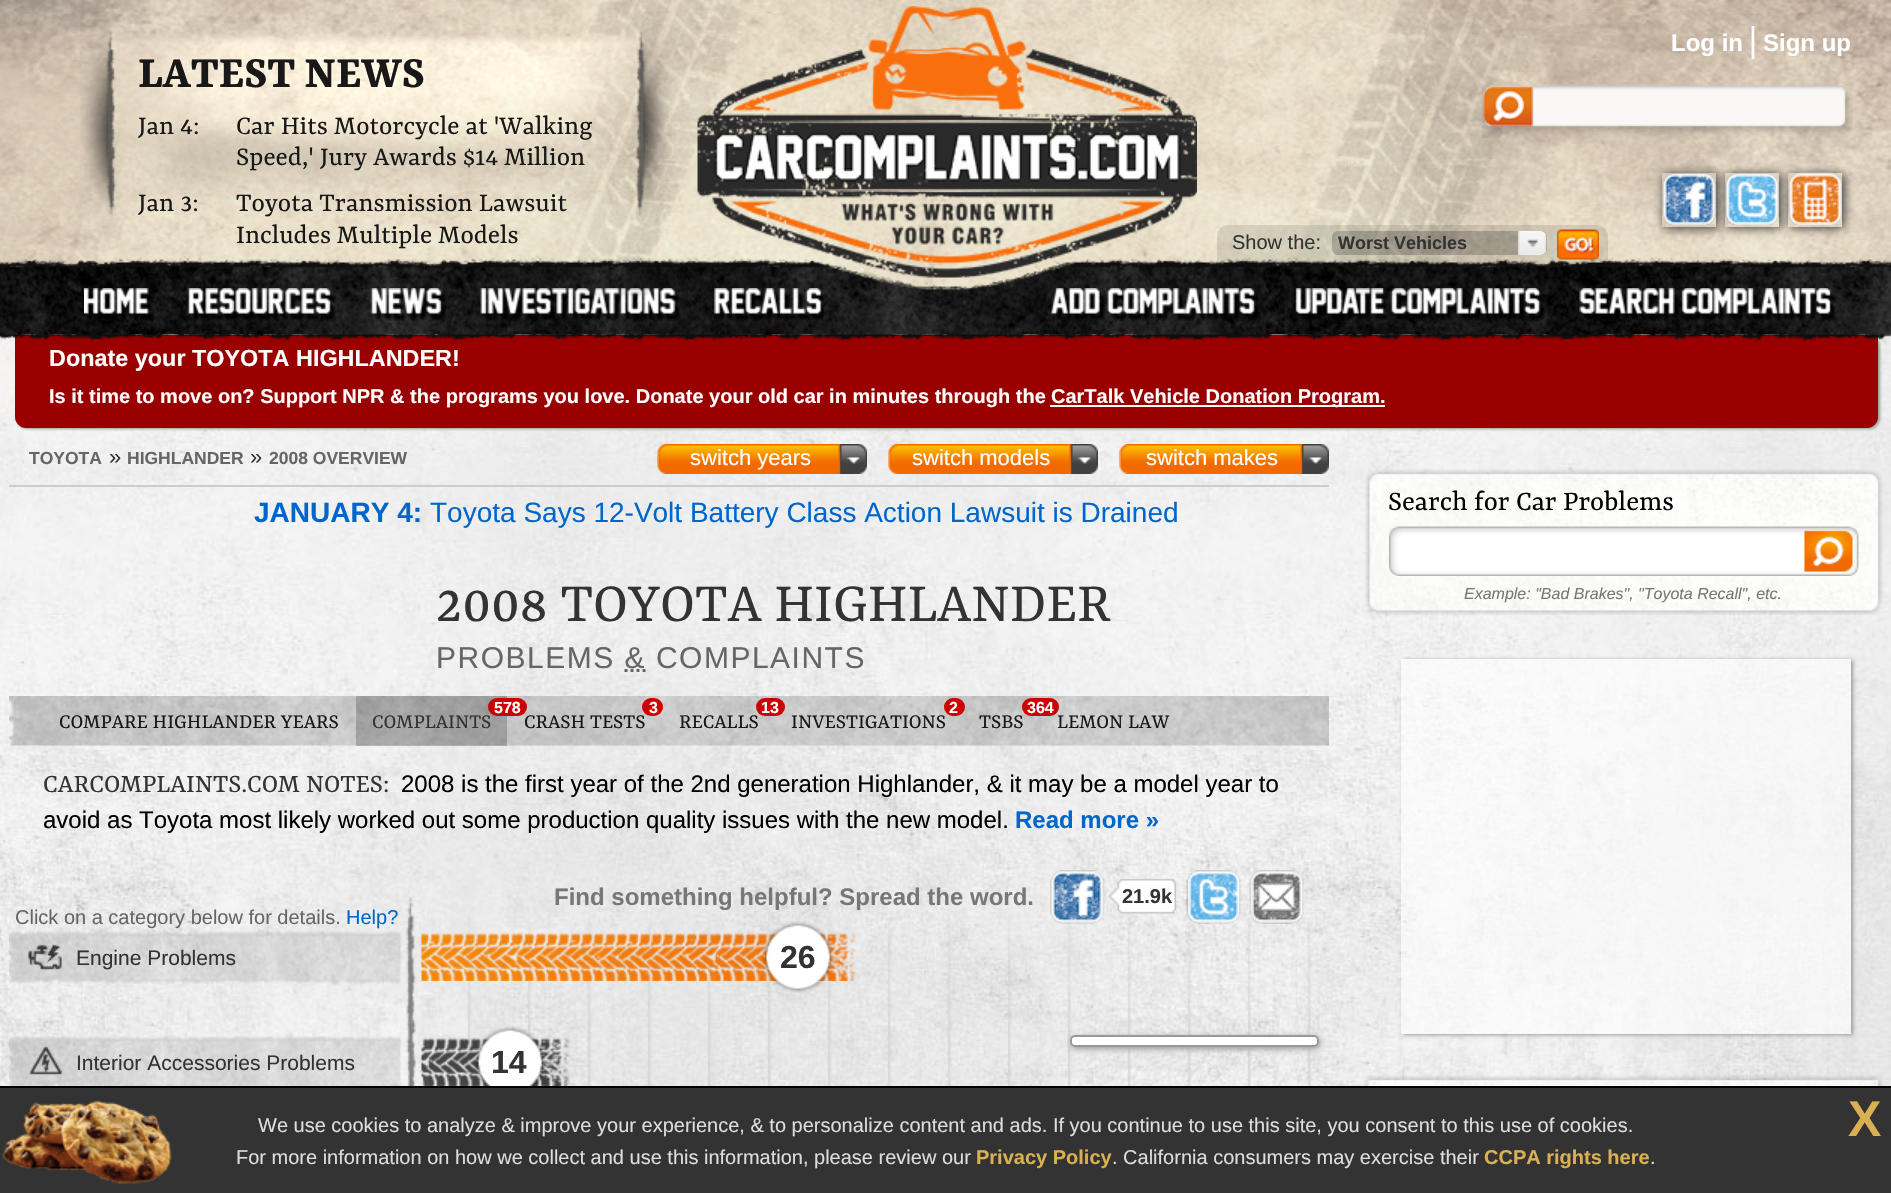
void draw(SkCanvas* canvas) {
  SkPaint paint;
  paint.setAntiAlias(true);
  auto face = [&](const char* family, int weight, float size, bool italic = false) {
    SkFontStyle style(weight, SkFontStyle::kNormal_Width,
      italic ? SkFontStyle::kItalic_Slant : SkFontStyle::kUpright_Slant);
    SkFont result(fontMgr->matchFamilyStyle(family, style), size);
    result.setSubpixel(true);
    return result;
  };
  auto writeSpaced = [&](const char* s, float x, float y, const SkFont& font, const SkPaint& ink, float letter, float word) {
    std::vector<SkGlyphID> glyphs(font.countText(s, strlen(s), SkTextEncoding::kUTF8));
    std::vector<float> xs(glyphs.size());
    font.textToGlyphs(s, strlen(s), SkTextEncoding::kUTF8, glyphs);
    font.getXPos(glyphs, xs, x);
    float extra = 0;
    for (size_t i = 0; i < glyphs.size(); i++) {
      xs[i] += extra;
      extra += letter + word * (glyphs[i] == font.unicharToGlyph(' '));
    }
    canvas->drawTextBlob(SkTextBlob::MakeFromPosHGlyphs(glyphs, xs, y, font), 0, 0, ink);
  };
  auto paste = [&](const char* path, float x, float y, float w, float h) {
    auto image = SkImages::DeferredFromEncodedData(SkData::MakeFromFileName(path));
    canvas->drawImageRect(image, SkRect::MakeXYWH(x, y, w, h), SkSamplingOptions());
  };
  auto shape = [&](const char* data, bool evenOdd = false) {
    SkPath result = *SkParsePath::FromSVGString(data);
    if (evenOdd) result.setFillType(SkPathFillType::kEvenOdd);
    return result;
  };
  canvas->clear(0xffffffff);
  paste("img/1.png", 0, 310, 1891, 776);
  paste("img/2.png", 0, 0, 1891, 311);
  paint.setColor(0xff999999);
  paint.setMaskFilter(SkMaskFilter::MakeBlur(kNormal_SkBlurStyle, 1.5f));
  canvas->drawRoundRect(SkRect::MakeXYWH(17, 336, 1863, 93), 11, 11, paint);
  paint.setMaskFilter(nullptr);
  paint.setColor(0xff990000);
  canvas->drawPath(shape("M15 335H1878V417C1878 423 1873 428 1867 428H26C20 428 15 423 15 417Z"), paint);
  paste("img/3.png", 0, 256, 1891, 88);
  paste("img/4.png", 697, 6, 500, 272);
  paste("img/5.png", 1482, 85, 371, 53);
  canvas->save();
  canvas->clipPath(shape("M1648 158H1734V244H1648ZM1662 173H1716V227H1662Z", true), true);
  paint.setColor(0xff333333);
  paint.setMaskFilter(SkMaskFilter::MakeBlur(kNormal_SkBlurStyle, 5));
  canvas->drawRect(SkRect::MakeXYWH(1664, 174, 54, 54), paint);
  paint.setMaskFilter(nullptr);
  canvas->restore();
  paste("img/6.png", 1662, 172, 54, 55);
  canvas->save();
  canvas->clipPath(shape("M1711 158H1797V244H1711ZM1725 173H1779V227H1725Z", true), true);
  paint.setMaskFilter(SkMaskFilter::MakeBlur(kNormal_SkBlurStyle, 5));
  canvas->drawRect(SkRect::MakeXYWH(1727, 174, 54, 54), paint);
  paint.setMaskFilter(nullptr);
  canvas->restore();
  paste("img/7.png", 1725, 172, 54, 55);
  canvas->save();
  canvas->clipPath(shape("M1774 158H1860V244H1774ZM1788 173H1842V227H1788Z", true), true);
  paint.setMaskFilter(SkMaskFilter::MakeBlur(kNormal_SkBlurStyle, 5));
  canvas->drawRect(SkRect::MakeXYWH(1790, 174, 54, 54), paint);
  paint.setMaskFilter(nullptr);
  canvas->restore();
  paste("img/8.png", 1788, 172, 54, 55);
  paste("img/9.png", 80, 11, 592, 206);
  paint.setColor(0x1a000000);
  canvas->drawPath(shape("M1228 225H1597C1603 225 1608 230 1608 236V266H1217V236C1217 230 1222 225 1228 225Z"), paint);
  paint.setColor(0x33000000);
  canvas->drawRoundRect(SkRect::MakeXYWH(1332, 231, 215, 24), 6, 6, paint);
  paste("img/10.png", 1518, 231, 29, 24);
  paste("img/11.png", 1557, 229, 42, 31);
  paste("img/12.png", 84, 288, 69, 33);
  paste("img/13.png", 187, 288, 149, 33);
  paste("img/14.png", 370, 288, 77, 33);
  paste("img/15.png", 480, 288, 200, 33);
  paste("img/16.png", 714, 288, 110, 33);
  paste("img/17.png", 1050, 288, 209, 33);
  paste("img/18.png", 1295, 288, 250, 33);
  paste("img/19.png", 1579, 288, 257, 33);
  paint.setColor(0xffffffff);
  canvas->drawRect(SkRect::MakeXYWH(1050, 405, 335, 2), paint);
  paint.setColor(0xffcccccc);
  canvas->drawRect(SkRect::MakeXYWH(9, 485, 1320, 2), paint);
  paste("img/20.png", 657, 444, 210, 30);
  paste("img/21.png", 888, 444, 210, 30);
  paste("img/22.png", 1119, 444, 210, 30);
  paint.setStroke(true);
  paint.setStrokeWidth(3);
  paint.setColor(0xff666666);
  paint.setPathEffect(SkDashPathEffect::Make({{3, 3}}, 0));
  canvas->drawPath(shape("M624.5 670.5H646"), paint);
  paint.setPathEffect(nullptr);
  paste("img/23.png", 9, 696, 1320, 50);
  paint.setStroke(false);
  paint.setColor(0x33000000);
  canvas->drawRect(SkRect::MakeXYWH(356, 696, 151, 50), paint);
  paste("img/27.png", 406, 896, 905, 190);
  paste("img/24.png", 1050, 870, 127, 54);
  paste("img/25.png", 1186, 870, 55, 54);
  paste("img/26.png", 1249, 870, 55, 54);
  paste("img/28.png", 9, 931, 392, 53);
  paste("img/29.png", 28, 944, 34, 26);
  paste("img/30.png", 421, 932, 437, 49);
  paste("img/31.png", 762, 921, 72, 72);
  paste("img/32.png", 9, 1036, 392, 50);
  paste("img/33.png", 29, 1046, 33, 29);
  paste("img/34.png", 421, 1037, 150, 49);
  paste("img/35.png", 474, 1026, 72, 60);
  paint.setColor(0xff999999);
  paint.setMaskFilter(SkMaskFilter::MakeBlur(kNormal_SkBlurStyle, 3));
  canvas->drawRoundRect(SkRect::MakeXYWH(1071, 1037, 249, 12), 5, 5, paint);
  paint.setMaskFilter(nullptr);
  paint.setColor(0xffffffff);
  canvas->drawRoundRect(SkRect::MakeXYWH(1071, 1036, 247, 10), 4, 4, paint);
  paint.setStroke(true);
  paint.setStrokeWidth(2);
  paint.setColor(0xff999999);
  canvas->drawRoundRect(SkRect::MakeXYWH(1071, 1036, 247, 10), 4, 4, paint);
  paste("img/36.png", 1365, 469, 518, 146);
  paste("img/37.png", 1389, 526, 470, 50);
  canvas->save();
  canvas->clipPath(shape("M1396 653H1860V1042H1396ZM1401 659H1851V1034H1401Z", true), true);
  paint.setStroke(false);
  paint.setMaskFilter(SkMaskFilter::MakeBlur(kNormal_SkBlurStyle, 2));
  canvas->drawRect(SkRect::MakeXYWH(1403, 660, 450, 375), paint);
  paint.setMaskFilter(nullptr);
  canvas->restore();
  paint.setColor(0x99ffffff);
  canvas->drawRect(SkRect::MakeXYWH(1401, 659, 450, 375), paint);
  paste("img/38.png", 1363, 1075, 520, 11);
  paint.setColor(0xff333333);
  canvas->drawRect(SkRect::MakeXYWH(0, 1088, 1891, 105), paint);
  paste("img/39.png", 2, 1100, 170, 84);
  paint.setColor(0xff000000);
  canvas->drawRect(SkRect::MakeXYWH(0, 1086, 1891, 2), paint);
  auto f0 = face("Liberation Sans", 700, 24);
  paint.setColor(0xffffffff);
  canvas->drawString("Log in", 1671, 51, f0, paint);
  auto f1 = face("Liberation Serif", 700, 36);
  canvas->drawString("|", 1749, 51, f1, paint);
  canvas->drawString("Sign up", 1763, 51, f0, paint);
  auto f2 = face("Yrsa", 700, 48);
  paint.setColor(0xff181818);
  canvas->drawString("LATEST NEWS", 138, 87, f2, paint);
  auto f3 = face("Yrsa", 400, 28.5f);
  {
    const struct { const char* s; float x, y; } items[] = {
      {"Jan 4:", 138, 134},
      {"Car Hits Motorcycle at 'Walking", 236, 134},
      {"Speed,' Jury Awards $14 Million", 236, 165},
      {"Jan 3:", 138, 211},
      {"Toyota Transmission Lawsuit", 236, 211},
      {"Includes Multiple Models", 236, 243},
    };
    for (auto [s, x, y] : items) {
      canvas->drawString(s, x, y, f3, paint);
    }
  }
  auto f4 = face("Liberation Sans", 400, 20);
  paint.setColor(0xff333333);
  canvas->drawString("Show the:", 1232, 249, f4, paint);
  auto f5 = face("Liberation Sans", 700, 18);
  canvas->drawString("Worst Vehicles", 1338, 249, f5, paint);
  auto f6 = face("Liberation Sans", 700, 23.4f);
  paint.setColor(0xffffffff);
  canvas->drawString("Donate your TOYOTA HIGHLANDER!", 49, 366, f6, paint);
  auto f7 = face("Liberation Sans", 700, 20);
  canvas->drawString("Is it time to move on? Support NPR & the programs you love. Donate your old car in minutes through the", 49, 403, f7, paint);
  canvas->drawString("CarTalk Vehicle Donation Program.", 1051, 403, f7, paint);
  auto f8 = face("Liberation Sans", 700, 17.5f);
  paint.setColor(0xff666666);
  canvas->drawString("TOYOTA", 29, 464, f8, paint);
  auto f9 = face("Liberation Sans", 400, 22);
  paint.setColor(0xff333333);
  canvas->drawString("»", 109, 464, f9, paint);
  paint.setColor(0xff666666);
  canvas->drawString("HIGHLANDER", 127, 464, f8, paint);
  paint.setColor(0xff333333);
  canvas->drawString("»", 250, 464, f9, paint);
  paint.setColor(0xff666666);
  canvas->drawString("2008 OVERVIEW", 269, 464, f8, paint);
  paint.setColor(0xffffffff);
  {
    const struct { const char* s; float x, y; } items[] = {
      {"switch years", 690, 465},
      {"switch models", 912, 465},
      {"switch makes", 1146, 465},
    };
    for (auto [s, x, y] : items) {
      canvas->drawString(s, x, y, f9, paint);
    }
  }
  auto f10 = face("Liberation Sans", 700, 28);
  paint.setColor(0xff0066cc);
  canvas->drawString("JANUARY 4:", 254, 522, f10, paint);
  auto f11 = face("Liberation Sans", 400, 28);
  canvas->drawString("Toyota Says 12-Volt Battery Class Action Lawsuit is Drained", 430, 522, f11, paint);
  auto f12 = face("Yrsa", 400, 60);
  paint.setColor(0xff333333);
  canvas->drawString("2008 TOYOTA HIGHLANDER", 436, 621, f12, paint);
  auto f13 = face("Liberation Sans", 400, 30);
  paint.setColor(0xff666666);
  writeSpaced("PROBLEMS & COMPLAINTS", 436, 668, f13, paint, 1.5f, 0);
  auto f14 = face("Yrsa", 400, 22);
  paint.setColor(0xff181818);
  canvas->drawString("COMPARE HIGHLANDER YEARS", 59, 728, f14, paint);
  paint.setColor(0xff333333);
  canvas->drawString("COMPLAINTS", 372, 728, f14, paint);
  paint.setColor(0xff181818);
  canvas->drawString("CRASH TESTS", 524, 728, f14, paint);
  paint.setColor(0xffcc0000);
  canvas->drawRoundRect(SkRect::MakeXYWH(642, 698, 21, 18), 9, 9, paint);
  auto f15 = face("Liberation Sans", 700, 16);
  paint.setColor(0xffffffff);
  canvas->drawString("3", 649, 713, f15, paint);
  paint.setColor(0xffcc0000);
  canvas->drawRoundRect(SkRect::MakeXYWH(488, 698, 39, 18), 9, 9, paint);
  paint.setColor(0xffffffff);
  canvas->drawString("578", 494, 713, f15, paint);
  paint.setColor(0xff181818);
  canvas->drawString("RECALLS", 679, 728, f14, paint);
  paint.setColor(0xffcc0000);
  canvas->drawRoundRect(SkRect::MakeXYWH(756, 698, 29, 18), 9, 9, paint);
  paint.setColor(0xffffffff);
  canvas->drawString("13", 761, 713, f15, paint);
  paint.setColor(0xff181818);
  canvas->drawString("INVESTIGATIONS", 791, 728, f14, paint);
  paint.setColor(0xffcc0000);
  canvas->drawRoundRect(SkRect::MakeXYWH(944, 698, 21, 18), 9, 9, paint);
  paint.setColor(0xffffffff);
  canvas->drawString("2", 949, 713, f15, paint);
  paint.setColor(0xff181818);
  canvas->drawString("TSBS", 979, 728, f14, paint);
  canvas->drawString("LEMON LAW", 1057, 728, f14, paint);
  paint.setColor(0xffcc0000);
  canvas->drawRoundRect(SkRect::MakeXYWH(1022, 698, 37, 18), 9, 9, paint);
  paint.setColor(0xffffffff);
  canvas->drawString("364", 1027, 713, f15, paint);
  auto f16 = face("Yrsa", 400, 28);
  paint.setColor(0xff333333);
  canvas->drawString("CARCOMPLAINTS.COM NOTES:", 43, 792, f16, paint);
  auto f17 = face("Liberation Sans", 400, 24);
  paint.setColor(0xff000000);
  canvas->drawString("2008 is the first year of the 2nd generation Highlander, & it may be a model year to", 401, 792, f17, paint);
  canvas->drawString("avoid as Toyota most likely worked out some production quality issues with the new model.", 43, 828, f17, paint);
  paint.setColor(0xff0066cc);
  canvas->drawString("Read more »", 1015, 828, f0, paint);
  paint.setColor(0xff777777);
  canvas->drawString("Find something helpful? Spread the word.", 554, 905, f0, paint);
  paint.setColor(0xff333333);
  canvas->drawString("21.9k", 1122, 903, f7, paint);
  paint.setColor(0xff666666);
  canvas->drawString("Click on a category below for details.", 15, 924, f4, paint);
  paint.setColor(0xff0066cc);
  canvas->drawString("Help?", 346, 924, f4, paint);
  auto f18 = face("Liberation Sans", 400, 21);
  paint.setColor(0xff333333);
  canvas->drawString("Engine Problems", 76, 965, f18, paint);
  auto f19 = face("Liberation Sans", 700, 32);
  canvas->drawString("26", 780, 968, f19, paint);
  canvas->drawString("Interior Accessories Problems", 76, 1070, f18, paint);
  canvas->drawString("14", 491, 1073, f19, paint);
  auto f20 = face("Yrsa", 400, 30);
  paint.setColor(0xff000000);
  canvas->drawString("Search for Car Problems", 1388, 510, f20, paint);
  auto f21 = face("Liberation Sans", 400, 16, true);
  paint.setColor(0xff777777);
  canvas->drawString("Example: \"Bad Brakes\", \"Toyota Recall\", etc.", 1464, 599, f21, paint);
  paint.setColor(0xffdddddd);
  canvas->drawString("We use cookies to analyze & improve your experience, & to personalize content and ads. If you continue to use this site, you consent to this use of cookies.", 258, 1132, f4, paint);
  auto f22 = face("Liberation Sans", 700, 50);
  paint.setColor(0xffdbb052);
  canvas->drawString("X", 1848, 1136, f22, paint);
  paint.setColor(0xffdddddd);
  canvas->drawString("For more information on how we collect and use this information, please review our", 236, 1164, f4, paint);
  paint.setColor(0xffdbb052);
  canvas->drawString("Privacy Policy", 976, 1164, f7, paint);
  paint.setColor(0xffdddddd);
  canvas->drawString(". California consumers may exercise their", 1112, 1164, f4, paint);
  paint.setColor(0xffdbb052);
  canvas->drawString("CCPA rights here", 1484, 1164, f7, paint);
  paint.setColor(0xffdddddd);
  canvas->drawString(".", 1650, 1164, f4, paint);
}
